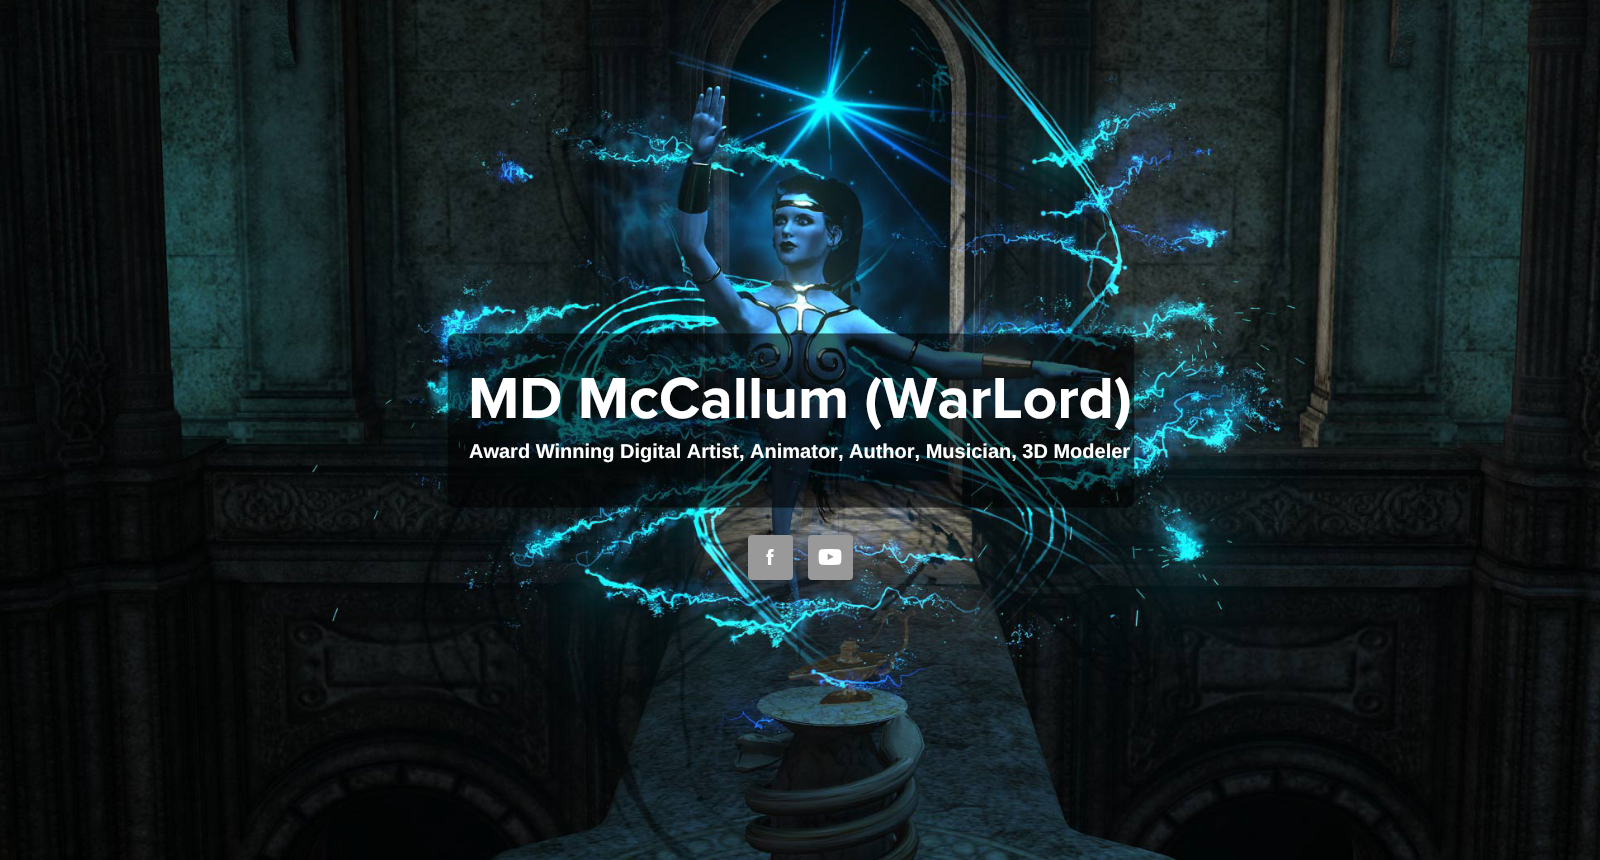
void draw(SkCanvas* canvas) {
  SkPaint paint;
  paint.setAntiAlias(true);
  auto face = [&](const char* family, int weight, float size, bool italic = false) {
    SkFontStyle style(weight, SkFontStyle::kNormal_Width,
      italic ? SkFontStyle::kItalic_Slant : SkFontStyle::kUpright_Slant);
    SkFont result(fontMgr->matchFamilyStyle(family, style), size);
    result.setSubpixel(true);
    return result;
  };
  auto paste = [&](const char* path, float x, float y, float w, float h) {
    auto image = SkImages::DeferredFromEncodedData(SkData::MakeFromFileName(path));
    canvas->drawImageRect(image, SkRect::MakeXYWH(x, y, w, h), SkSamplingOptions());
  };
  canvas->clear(0xffffffff);
  paste("img/1.png", 0, 0, 1600, 860);
  paint.setColor(0xff999999);
  canvas->drawRoundRect(SkRect::MakeXYWH(748, 535, 45, 45), 4, 4, paint);
  paste("img/2.png", 766, 549, 8, 16);
  canvas->drawRoundRect(SkRect::MakeXYWH(808, 535, 45, 45), 4, 4, paint);
  paste("img/3.png", 818, 549, 24, 16);
  auto f0 = face("Proxima Nova", 700, 60);
  paint.setColor(0xffffffff);
  canvas->drawString("MD McCallum (WarLord)", 468, 418, f0, paint);
  auto f1 = face("Liberation Sans", 700, 20);
  canvas->drawString("Award Winning Digital Artist, Animator, Author, Musician, 3D Modeler", 469, 458, f1, paint);
}
